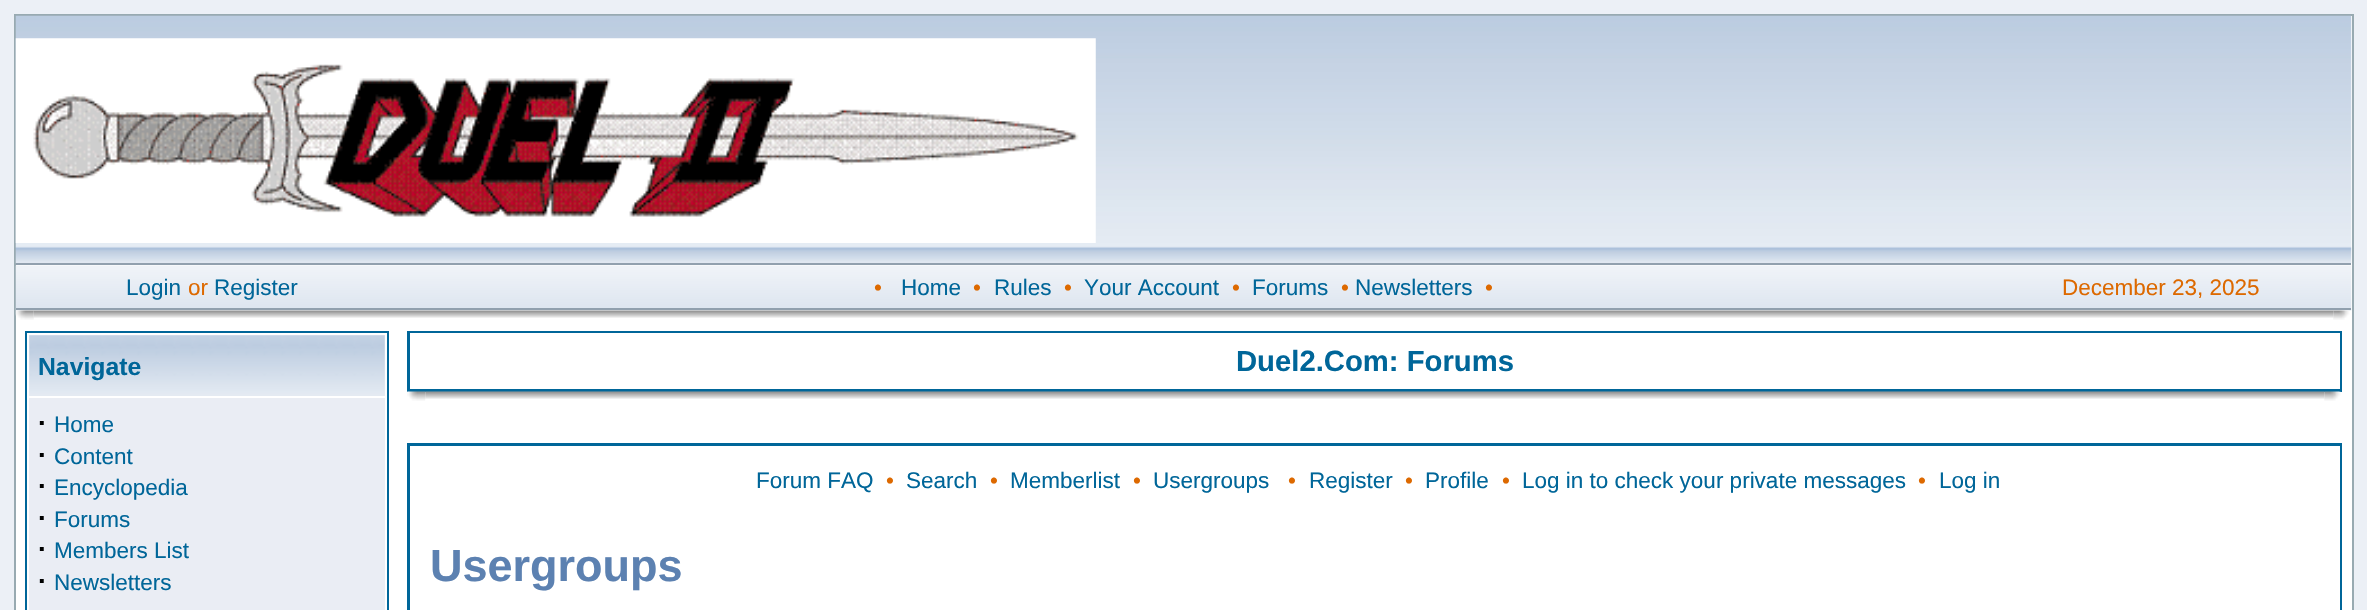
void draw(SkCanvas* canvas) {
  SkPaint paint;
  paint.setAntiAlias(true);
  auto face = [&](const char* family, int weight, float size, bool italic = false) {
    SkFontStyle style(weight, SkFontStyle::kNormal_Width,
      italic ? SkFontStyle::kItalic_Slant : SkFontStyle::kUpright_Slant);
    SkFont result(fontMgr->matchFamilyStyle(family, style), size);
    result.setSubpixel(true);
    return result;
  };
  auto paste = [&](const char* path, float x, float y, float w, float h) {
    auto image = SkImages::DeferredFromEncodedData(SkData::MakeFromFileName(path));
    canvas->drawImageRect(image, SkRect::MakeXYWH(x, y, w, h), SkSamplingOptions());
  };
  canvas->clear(0xffecf0f6);
  paint.setColor(0xffffffff);
  canvas->drawRect(SkRect::MakeXYWH(15, 15, 2338, 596), paint);
  paint.setStroke(true);
  paint.setStrokeWidth(2);
  paint.setColor(0xff98aab1);
  canvas->drawRect(SkRect::MakeXYWH(15, 15, 2338, 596), paint);
  paste("img/1.png", 15, 15, 2337, 249);
  paste("img/2.png", 15, 38, 1081, 205);
  paste("img/3.png", 15, 265, 381, 46);
  paint.setStroke(false);
  paint.setColor(0xff91a0ae);
  canvas->drawRect(SkRect::MakeXYWH(16, 263, 2335, 2), paint);
  canvas->drawRect(SkRect::MakeXYWH(16, 308, 380, 2), paint);
  paste("img/4.png", 396, 265, 1575, 46);
  canvas->drawRect(SkRect::MakeXYWH(396, 308, 1575, 2), paint);
  paste("img/5.png", 1971, 265, 381, 46);
  canvas->drawRect(SkRect::MakeXYWH(1971, 308, 380, 2), paint);
  paste("img/6.png", 15, 310, 19, 10);
  paste("img/7.png", 33, 310, 2301, 8);
  paste("img/8.png", 2333, 310, 17, 10);
  {
    const struct { float x, y, w, h; SkColor color; } items[] = {
      {25, 331, 364, 279, 0xff006699},
      {27, 333, 360, 277, 0xffffffff},
      {29, 335, 356, 61, 0xffeaedf4},
    };
    for (auto [x, y, w, h, color] : items) {
      paint.setColor(color);
      canvas->drawRect(SkRect::MakeXYWH(x, y, w, h), paint);
    }
  }
  paste("img/9.png", 29, 335, 356, 61);
  {
    const struct { float x, y, w, h; SkColor color; } items[] = {
      {29, 398, 356, 212, 0xffeaedf4},
      {407, 331, 1935, 61, 0xff006699},
      {410, 333, 1930, 56, 0xffffffff},
    };
    for (auto [x, y, w, h, color] : items) {
      paint.setColor(color);
      canvas->drawRect(SkRect::MakeXYWH(x, y, w, h), paint);
    }
  }
  paste("img/10.png", 407, 391, 19, 10);
  paste("img/11.png", 425, 391, 1900, 8);
  paste("img/12.png", 2324, 391, 17, 10);
  paint.setColor(0xff006699);
  canvas->drawRect(SkRect::MakeXYWH(407, 443, 1935, 167), paint);
  paint.setColor(0xffffffff);
  canvas->drawRect(SkRect::MakeXYWH(410, 446, 1930, 164), paint);
  auto f0 = face("Liberation Sans", 400, 22.5f);
  paint.setColor(0xff006699);
  canvas->drawString("Login", 126, 295, f0, paint);
  paint.setColor(0xffdd6900);
  canvas->drawString("or", 188, 295, f0, paint);
  paint.setColor(0xff006699);
  canvas->drawString("Register", 214, 295, f0, paint);
  paint.setColor(0xffdd6900);
  canvas->drawString("•", 874, 295, f0, paint);
  paint.setColor(0xff006699);
  canvas->drawString("Home", 901, 295, f0, paint);
  paint.setColor(0xffdd6900);
  canvas->drawString("•", 973, 295, f0, paint);
  paint.setColor(0xff006699);
  canvas->drawString("Rules", 994, 295, f0, paint);
  paint.setColor(0xffdd6900);
  canvas->drawString("•", 1064, 295, f0, paint);
  paint.setColor(0xff006699);
  canvas->drawString("Your Account", 1084, 295, f0, paint);
  paint.setColor(0xffdd6900);
  canvas->drawString("•", 1232, 295, f0, paint);
  paint.setColor(0xff006699);
  canvas->drawString("Forums", 1252, 295, f0, paint);
  paint.setColor(0xffdd6900);
  canvas->drawString("•", 1341, 295, f0, paint);
  paint.setColor(0xff006699);
  canvas->drawString("Newsletters", 1355, 295, f0, paint);
  paint.setColor(0xffdd6900);
  canvas->drawString("•", 1485, 295, f0, paint);
  canvas->drawString("December 23, 2025", 2062, 295, f0, paint);
  auto f1 = face("Liberation Sans", 700, 24.75f);
  paint.setColor(0xff006699);
  canvas->drawString("Navigate", 38, 375, f1, paint);
  auto f2 = face("Liberation Sans", 700, 27);
  paint.setColor(0xff000000);
  canvas->drawString("·", 38, 432, f2, paint);
  paint.setColor(0xff006699);
  canvas->drawString("Home", 54, 432, f0, paint);
  paint.setColor(0xff000000);
  canvas->drawString("·", 38, 464, f2, paint);
  paint.setColor(0xff006699);
  canvas->drawString("Content", 54, 464, f0, paint);
  paint.setColor(0xff000000);
  canvas->drawString("·", 38, 495, f2, paint);
  paint.setColor(0xff006699);
  canvas->drawString("Encyclopedia", 54, 495, f0, paint);
  paint.setColor(0xff000000);
  canvas->drawString("·", 38, 527, f2, paint);
  paint.setColor(0xff006699);
  canvas->drawString("Forums", 54, 527, f0, paint);
  paint.setColor(0xff000000);
  canvas->drawString("·", 38, 558, f2, paint);
  paint.setColor(0xff006699);
  canvas->drawString("Members List", 54, 558, f0, paint);
  paint.setColor(0xff000000);
  canvas->drawString("·", 38, 590, f2, paint);
  paint.setColor(0xff006699);
  canvas->drawString("Newsletters", 54, 590, f0, paint);
  auto f3 = face("Liberation Sans", 700, 29.25f);
  canvas->drawString("Duel2.Com: Forums", 1236, 371, f3, paint);
  canvas->drawString("Forum FAQ", 756, 488, f0, paint);
  paint.setColor(0xffdd6900);
  canvas->drawString("•", 886, 488, f0, paint);
  paint.setColor(0xff006699);
  canvas->drawString("Search", 906, 488, f0, paint);
  paint.setColor(0xffdd6900);
  canvas->drawString("•", 990, 488, f0, paint);
  paint.setColor(0xff006699);
  canvas->drawString("Memberlist", 1010, 488, f0, paint);
  paint.setColor(0xffdd6900);
  canvas->drawString("•", 1133, 488, f0, paint);
  paint.setColor(0xff006699);
  canvas->drawString("Usergroups", 1153, 488, f0, paint);
  paint.setColor(0xffdd6900);
  canvas->drawString("•", 1288, 488, f0, paint);
  paint.setColor(0xff006699);
  canvas->drawString("Register", 1309, 488, f0, paint);
  paint.setColor(0xffdd6900);
  canvas->drawString("•", 1405, 488, f0, paint);
  paint.setColor(0xff006699);
  canvas->drawString("Profile", 1425, 488, f0, paint);
  paint.setColor(0xffdd6900);
  canvas->drawString("•", 1502, 488, f0, paint);
  paint.setColor(0xff006699);
  canvas->drawString("Log in to check your private messages", 1522, 488, f0, paint);
  paint.setColor(0xffdd6900);
  canvas->drawString("•", 1918, 488, f0, paint);
  paint.setColor(0xff006699);
  canvas->drawString("Log in", 1939, 488, f0, paint);
  auto f4 = face("Liberation Sans", 700, 45);
  paint.setColor(0xff5c81b1);
  canvas->drawString("Usergroups", 430, 581, f4, paint);
}
